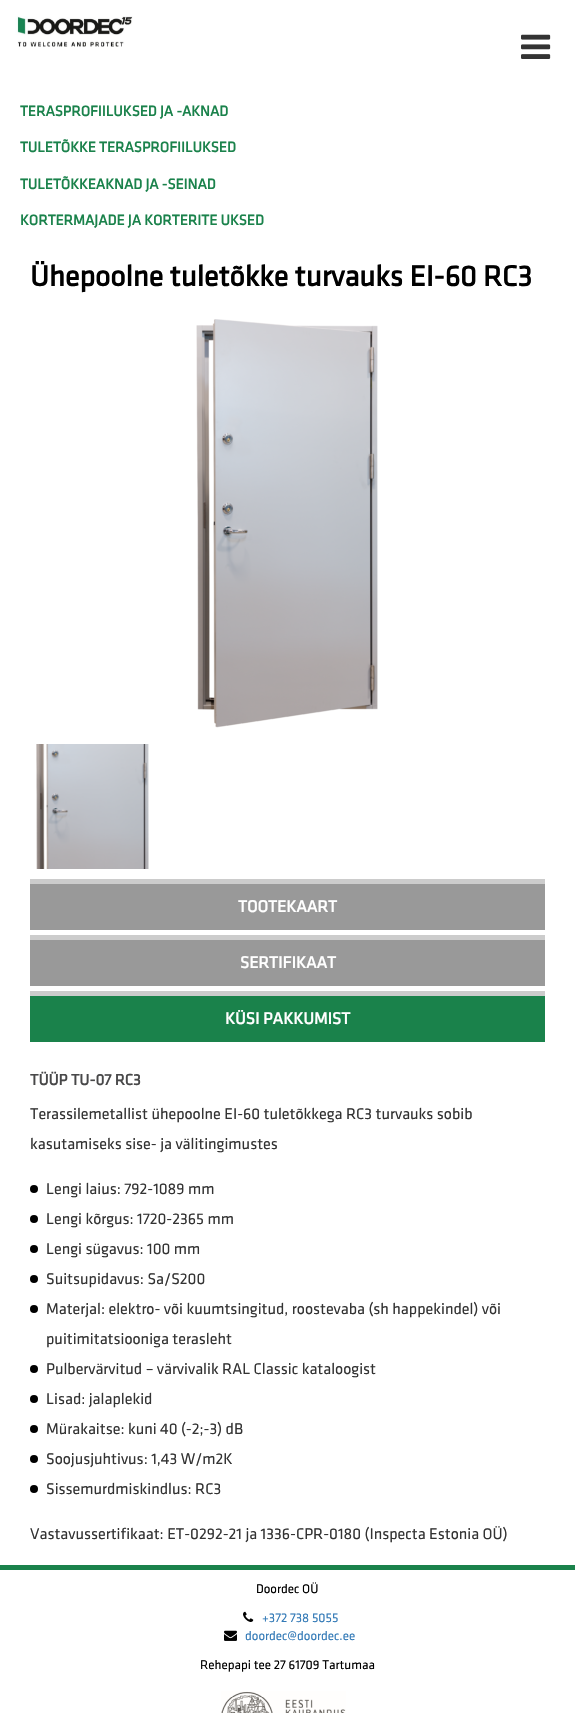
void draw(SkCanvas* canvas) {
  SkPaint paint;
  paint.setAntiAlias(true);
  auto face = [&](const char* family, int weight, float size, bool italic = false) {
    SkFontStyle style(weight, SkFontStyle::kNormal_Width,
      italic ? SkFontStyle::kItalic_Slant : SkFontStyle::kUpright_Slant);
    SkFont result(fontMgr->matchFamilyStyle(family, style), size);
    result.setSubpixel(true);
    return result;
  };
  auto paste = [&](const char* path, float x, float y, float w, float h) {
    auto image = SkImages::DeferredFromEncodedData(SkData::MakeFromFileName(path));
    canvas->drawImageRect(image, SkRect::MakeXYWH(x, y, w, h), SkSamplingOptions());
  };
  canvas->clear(0xffffffff);
  paste("img/1.png", 15, 16, 118, 31);
  paste("img/2.png", 521, 34, 30, 25);
  paste("img/3.png", 196, 319, 182, 409);
  paste("img/4.png", 36, 744, 113, 125);
  {
    const struct { float x, y, w, h; SkColor color; } items[] = {
      {30, 884, 515, 46, 0xff999999},
      {30, 879, 515, 5, 0xffcccccc},
      {30, 940, 515, 46, 0xff999999},
      {30, 935, 515, 5, 0xffcccccc},
      {30, 996, 515, 46, 0xff1a824b},
      {30, 991, 515, 5, 0xffcccccc},
    };
    for (auto [x, y, w, h, color] : items) {
      paint.setColor(color);
      canvas->drawRect(SkRect::MakeXYWH(x, y, w, h), paint);
    }
  }
  paint.setColor(0xff000000);
  canvas->drawCircle(34, 1189, 4, paint);
  canvas->drawCircle(34, 1219, 4, paint);
  canvas->drawCircle(34, 1249, 4, paint);
  canvas->drawCircle(34, 1279, 4, paint);
  canvas->drawCircle(34, 1309, 4, paint);
  canvas->drawCircle(34, 1369, 4, paint);
  canvas->drawCircle(34, 1399, 4, paint);
  canvas->drawCircle(34, 1429, 4, paint);
  canvas->drawCircle(34, 1459, 4, paint);
  canvas->drawCircle(34, 1489, 4, paint);
  paint.setColor(0xff1a824b);
  canvas->drawRect(SkRect::MakeXYWH(0, 1565, 575, 5), paint);
  paste("img/5.png", 243, 1611, 11, 11);
  paste("img/6.png", 224, 1630, 13, 11);
  paste("img/7.png", 221, 1691, 125, 22);
  auto f0 = face("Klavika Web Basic", 700, 15);
  {
    const struct { const char* s; float x, y; } items[] = {
      {"TERASPROFIILUKSED JA -AKNAD", 20, 116},
      {"TULETÕKKE TERASPROFIILUKSED", 20, 152},
      {"TULETÕKKEAKNAD JA -SEINAD", 20, 189},
      {"KORTERMAJADE JA KORTERITE UKSED", 20, 225},
    };
    for (auto [s, x, y] : items) {
      canvas->drawString(s, x, y, f0, paint);
    }
  }
  auto f1 = face("Klavika Web Basic", 700, 30);
  paint.setColor(0xff000000);
  canvas->drawString("Ühepoolne tuletõkke turvauks EI-60 RC3", 30, 286, f1, paint);
  auto f2 = face("Klavika Web Basic", 700, 17);
  paint.setColor(0xffffffff);
  {
    const struct { const char* s; float x, y; } items[] = {
      {"TOOTEKAART", 238, 912},
      {"SERTIFIKAAT", 240, 968},
      {"KÜSI PAKKUMIST", 225, 1024},
    };
    for (auto [s, x, y] : items) {
      canvas->drawString(s, x, y, f2, paint);
    }
  }
  auto f3 = face("Klavika Web Basic", 700, 16);
  paint.setColor(0xff484849);
  canvas->drawString("TÜÜP TU-07 RC3", 30, 1085, f3, paint);
  auto f4 = face("Klavika Web Basic", 400, 16);
  paint.setColor(0xff333333);
  {
    const struct { const char* s; float x, y; } items[] = {
      {"Terassilemetallist ühepoolne EI-60 tuletõkkega RC3 turvauks sobib", 30, 1119},
      {"kasutamiseks sise- ja välitingimustes", 30, 1149},
      {"Lengi laius: 792-1089 mm", 46, 1194},
      {"Lengi kõrgus: 1720-2365 mm", 46, 1224},
      {"Lengi sügavus: 100 mm", 46, 1254},
      {"Suitsupidavus: Sa/S200", 46, 1284},
      {"Materjal: elektro- või kuumtsingitud, roostevaba (sh happekindel) või", 46, 1314},
      {"puitimitatsiooniga terasleht", 46, 1344},
      {"Pulbervärvitud – värvivalik RAL Classic kataloogist", 46, 1374},
      {"Lisad: jalaplekid", 46, 1404},
      {"Mürakaitse: kuni 40 (-2;-3) dB", 46, 1434},
      {"Soojusjuhtivus: 1,43 W/m2K", 46, 1464},
      {"Sissemurdmiskindlus: RC3", 46, 1494},
      {"Vastavussertifikaat: ET-0292-21 ja 1336-CPR-0180 (Inspecta Estonia OÜ)", 30, 1539},
    };
    for (auto [s, x, y] : items) {
      canvas->drawString(s, x, y, f4, paint);
    }
  }
  auto f5 = face("Klavika Web Basic", 400, 13);
  paint.setColor(0xff000000);
  canvas->drawString("Doordec OÜ", 256, 1593, f5, paint);
  paint.setColor(0xff337ab7);
  canvas->drawString("+372 738 5055", 262, 1622, f5, paint);
  canvas->drawString("doordec@doordec.ee", 245, 1640, f5, paint);
  paint.setColor(0xff000000);
  canvas->drawString("Rehepapi tee 27 61709 Tartumaa", 200, 1669, f5, paint);
}
